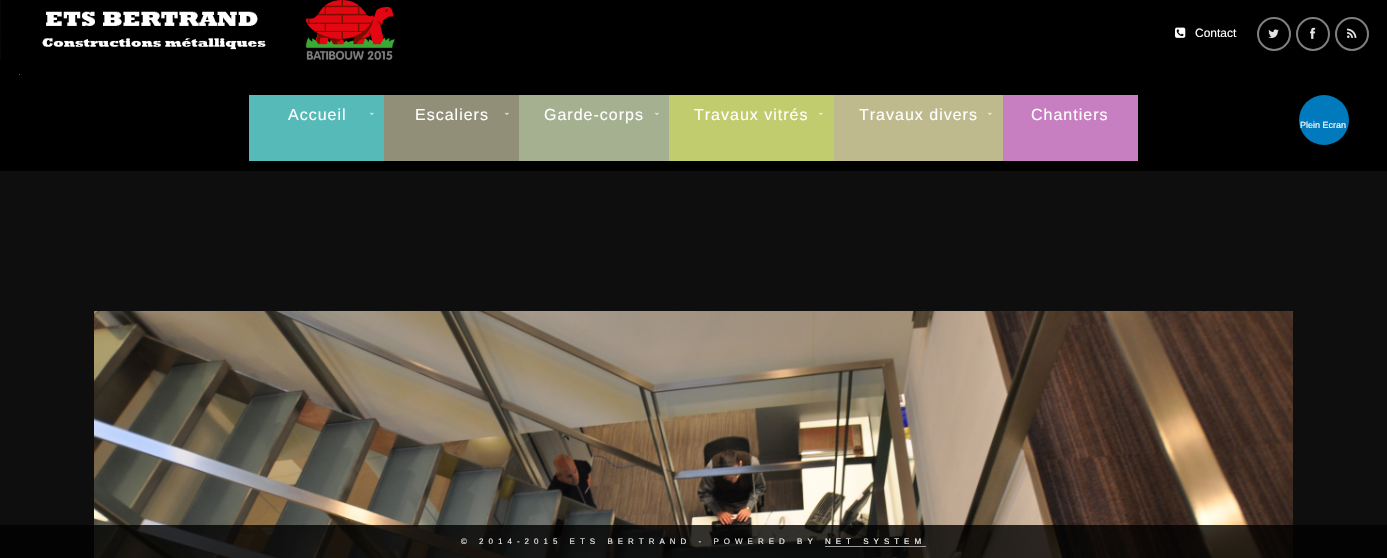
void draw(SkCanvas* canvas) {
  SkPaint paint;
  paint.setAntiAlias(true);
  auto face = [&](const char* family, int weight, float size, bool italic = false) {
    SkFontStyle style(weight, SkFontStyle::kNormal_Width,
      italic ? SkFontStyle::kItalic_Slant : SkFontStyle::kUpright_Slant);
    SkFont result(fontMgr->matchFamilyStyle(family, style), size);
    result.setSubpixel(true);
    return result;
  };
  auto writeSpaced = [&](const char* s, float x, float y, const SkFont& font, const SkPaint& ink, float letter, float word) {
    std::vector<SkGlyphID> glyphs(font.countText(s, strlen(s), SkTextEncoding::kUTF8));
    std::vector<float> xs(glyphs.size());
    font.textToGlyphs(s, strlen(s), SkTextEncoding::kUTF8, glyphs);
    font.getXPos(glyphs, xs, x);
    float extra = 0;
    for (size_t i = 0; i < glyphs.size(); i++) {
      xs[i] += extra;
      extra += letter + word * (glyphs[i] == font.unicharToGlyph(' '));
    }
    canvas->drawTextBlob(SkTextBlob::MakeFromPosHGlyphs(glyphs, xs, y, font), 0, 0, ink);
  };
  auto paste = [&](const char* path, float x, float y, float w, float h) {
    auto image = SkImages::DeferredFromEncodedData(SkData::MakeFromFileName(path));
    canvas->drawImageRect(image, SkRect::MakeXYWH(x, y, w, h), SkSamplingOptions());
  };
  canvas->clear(0xff000000);
  paste("img/1.png", 0, 0, 266, 60);
  paste("img/2.png", 305, 0, 90, 60);
  paste("img/3.png", 1175, 27, 11, 11);
  paint.setStroke(true);
  paint.setStrokeWidth(2);
  paint.setColor(0xff808080);
  canvas->drawCircle(1274, 34, 16, paint);
  paste("img/4.png", 1268, 29, 11, 9);
  canvas->drawCircle(1313, 34, 16, paint);
  paste("img/5.png", 1310, 27, 6, 12);
  canvas->drawCircle(1352, 34, 16, paint);
  paste("img/6.png", 1347, 28, 10, 10);
  paint.setStroke(false);
  paint.setColor(0xffcc3e00);
  canvas->drawRect(SkRect::MakeXYWH(19, 74, 1, 1), paint);
  paint.setColor(0xff56bab8);
  canvas->drawRect(SkRect::MakeXYWH(249, 95, 135, 66), paint);
  paste("img/7.png", 370, 112, 4, 3);
  paint.setColor(0xff918f77);
  canvas->drawRect(SkRect::MakeXYWH(384, 95, 135, 66), paint);
  paste("img/8.png", 505, 112, 4, 3);
  paint.setColor(0xffa5b090);
  canvas->drawRect(SkRect::MakeXYWH(519, 95, 150, 66), paint);
  paste("img/9.png", 655, 112, 4, 3);
  paint.setColor(0xffc1cc6e);
  canvas->drawRect(SkRect::MakeXYWH(669, 95, 165, 66), paint);
  paste("img/10.png", 819, 112, 4, 3);
  paint.setColor(0xffbfba8e);
  canvas->drawRect(SkRect::MakeXYWH(834, 95, 169, 66), paint);
  paste("img/11.png", 988, 112, 4, 3);
  paint.setColor(0xffc77fc2);
  canvas->drawRect(SkRect::MakeXYWH(1003, 95, 135, 66), paint);
  paint.setColor(0xff007abc);
  canvas->drawCircle(1324, 120, 25, paint);
  paint.setColor(0xff0e0e0e);
  canvas->drawRect(SkRect::MakeXYWH(0, 171, 1387, 387), paint);
  paste("img/12.png", 94, 311, 1199, 247);
  paint.setColor(0xcc000000);
  canvas->drawRect(SkRect::MakeXYWH(0, 525, 1387, 33), paint);
  paint.setColor(0xff999999);
  canvas->drawRect(SkRect::MakeXYWH(825, 546, 101, 1), paint);
  auto f0 = face("Liberation Sans", 400, 12);
  paint.setColor(0xffffffff);
  canvas->drawString("Contact", 1195, 37, f0, paint);
  auto f1 = face("Liberation Sans", 400, 16);
  {
    const struct { const char* s; float x, y; } items[] = {
      {"Accueil", 288, 120},
      {"Escaliers", 415, 120},
      {"Garde-corps", 544, 120},
      {"Travaux vitrés", 694, 120},
      {"Travaux divers", 859, 120},
      {"Chantiers", 1031, 120},
    };
    for (auto [s, x, y] : items) {
      writeSpaced(s, x, y, f1, paint, 1, 0);
    }
  }
  auto f2 = face("Liberation Sans", 400, 9);
  canvas->drawString("Plein Ecran", 1300, 128, f2, paint);
  auto f3 = face("Liberation Sans", 400, 8);
  paint.setColor(0xffeeeeee);
  writeSpaced("© 2014-2015 ETS BERTRAND - POWERED BY", 461, 544, f3, paint, 5, 0);
  paint.setColor(0xffffffff);
  writeSpaced("NET SYSTEM", 825, 544, f3, paint, 5, 0);
}
